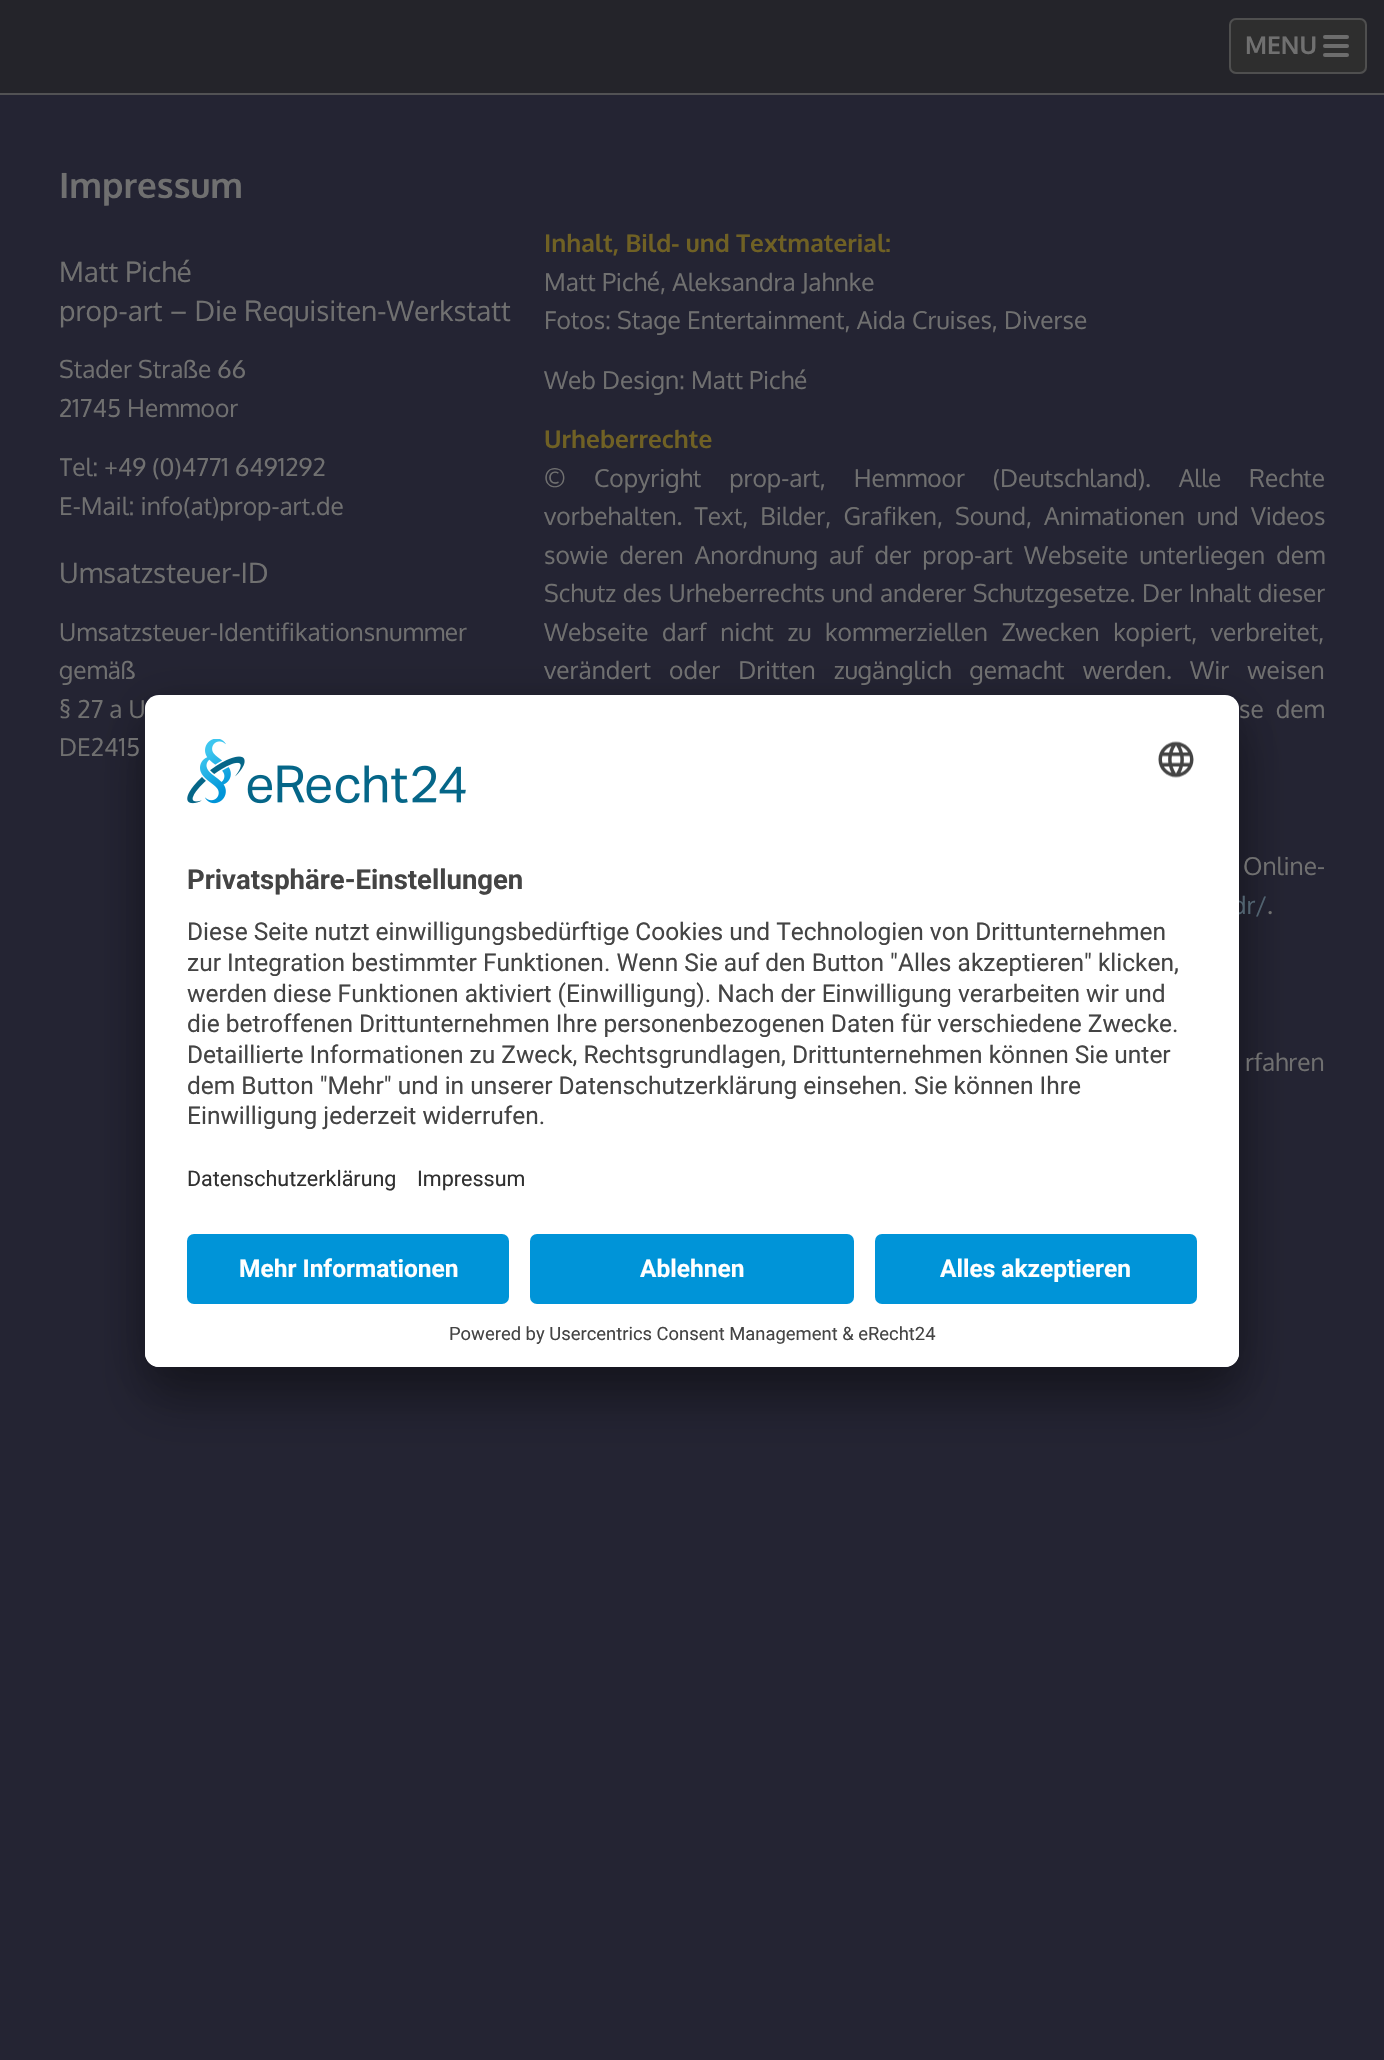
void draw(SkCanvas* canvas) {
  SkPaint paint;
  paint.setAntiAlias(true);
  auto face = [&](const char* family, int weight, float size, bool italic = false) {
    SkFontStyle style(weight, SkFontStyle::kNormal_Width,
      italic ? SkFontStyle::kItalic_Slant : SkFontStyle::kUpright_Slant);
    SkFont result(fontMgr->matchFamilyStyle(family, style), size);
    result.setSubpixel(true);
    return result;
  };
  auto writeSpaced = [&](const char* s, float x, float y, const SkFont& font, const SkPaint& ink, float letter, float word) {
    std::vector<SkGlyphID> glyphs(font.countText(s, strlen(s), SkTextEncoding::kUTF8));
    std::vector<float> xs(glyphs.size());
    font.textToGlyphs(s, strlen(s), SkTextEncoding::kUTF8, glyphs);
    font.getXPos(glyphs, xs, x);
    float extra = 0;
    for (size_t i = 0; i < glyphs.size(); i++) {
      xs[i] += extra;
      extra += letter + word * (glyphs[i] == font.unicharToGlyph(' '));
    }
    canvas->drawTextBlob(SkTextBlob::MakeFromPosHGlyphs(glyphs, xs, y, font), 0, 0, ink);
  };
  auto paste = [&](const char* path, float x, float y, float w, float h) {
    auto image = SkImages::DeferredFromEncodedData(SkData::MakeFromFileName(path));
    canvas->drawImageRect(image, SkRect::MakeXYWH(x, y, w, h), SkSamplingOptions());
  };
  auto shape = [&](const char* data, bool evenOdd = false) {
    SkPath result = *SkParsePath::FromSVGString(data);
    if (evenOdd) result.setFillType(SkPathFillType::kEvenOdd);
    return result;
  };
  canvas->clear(0xff242433);
  paint.setColor(0xff24242a);
  canvas->drawRect(SkRect::MakeXYWH(0, 0, 1384, 93), paint);
  paint.setColor(0xff525254);
  canvas->drawRect(SkRect::MakeXYWH(0, 93, 1384, 2), paint);
  paint.setColor(0xff2e2e2e);
  canvas->drawRoundRect(SkRect::MakeXYWH(1229, 18, 138, 56), 7, 7, paint);
  paint.setStroke(true);
  paint.setStrokeWidth(2);
  paint.setColor(0x80707070);
  canvas->drawRoundRect(SkRect::MakeXYWH(1230, 19, 136, 54), 6, 6, paint);
  paint.setStroke(false);
  paint.setColor(0xff6d6d6d);
  canvas->drawRoundRect(SkRect::MakeXYWH(1323, 35, 26, 4), 2, 2, paint);
  canvas->drawRoundRect(SkRect::MakeXYWH(1323, 44, 26, 4), 2, 2, paint);
  canvas->drawRoundRect(SkRect::MakeXYWH(1323, 53, 26, 4), 2, 2, paint);
  paint.setColor(0x4d000000);
  paint.setMaskFilter(SkMaskFilter::MakeBlur(kNormal_SkBlurStyle, 24.5f));
  canvas->drawRoundRect(SkRect::MakeXYWH(145, 730, 1094, 672), 14, 14, paint);
  paint.setMaskFilter(nullptr);
  paint.setColor(0x38000000);
  paint.setMaskFilter(SkMaskFilter::MakeBlur(kNormal_SkBlurStyle, 23));
  canvas->drawRoundRect(SkRect::MakeXYWH(145, 704, 1094, 672), 14, 14, paint);
  paint.setMaskFilter(nullptr);
  auto f0 = face("Oxygen", 700, 24.5f);
  paint.setColor(0xff707070);
  canvas->drawString("MENU", 1245, 54, f0, paint);
  auto f1 = face("Oxygen", 700, 35);
  canvas->drawString("Impressum", 59, 198, f1, paint);
  auto f2 = face("Oxygen", 400, 28);
  canvas->drawString("Matt Piché", 59, 282, f2, paint);
  canvas->drawString("prop-art – Die Requisiten-Werkstatt", 59, 321, f2, paint);
  auto f3 = face("Oxygen", 400, 24.5f);
  canvas->drawString("Stader Straße 66", 59, 378, f3, paint);
  canvas->drawString("21745 Hemmoor", 59, 417, f3, paint);
  canvas->save();
  canvas->clipRect(SkRect::MakeXYWH(60, 224, 458, 564));
  canvas->drawString("Tel: +49 (0)4771 6491292", 59, 476, f3, paint);
  canvas->restore();
  canvas->drawString("E-Mail: info(at)prop-art.de", 59, 515, f3, paint);
  canvas->drawString("Umsatzsteuer-ID", 59, 583, f2, paint);
  {
    const struct { const char* s; float x, y; } items[] = {
      {"Umsatzsteuer-Identifikationsnummer", 59, 641},
      {"gemäß", 59, 679},
      {"§ 27 a U", 59, 718},
      {"DE2415", 59, 756},
    };
    for (auto [s, x, y] : items) {
      canvas->drawString(s, x, y, f3, paint);
    }
  }
  paint.setColor(0xff706124);
  canvas->drawString("Inhalt, Bild- und Textmaterial:", 544, 252, f0, paint);
  paint.setColor(0xff707070);
  {
    const struct { const char* s; float x, y; } items[] = {
      {"Matt Piché, Aleksandra Jahnke", 544, 291},
      {"Fotos: Stage Entertainment, Aida Cruises, Diverse", 544, 329},
      {"Web Design: Matt Piché", 544, 389},
    };
    for (auto [s, x, y] : items) {
      canvas->drawString(s, x, y, f3, paint);
    }
  }
  paint.setColor(0xff706124);
  canvas->drawString("Urheberrechte", 544, 448, f0, paint);
  paint.setColor(0xff707070);
  writeSpaced("© Copyright prop-art, Hemmoor (Deutschland). Alle Rechte", 544, 487, f3, paint, 0, 21.75f);
  writeSpaced("vorbehalten. Text, Bilder, Grafiken, Sound, Animationen und Videos", 544, 525, f3, paint, 0, 6);
  writeSpaced("sowie deren Anordnung auf der prop-art Webseite unterliegen dem", 544, 564, f3, paint, 0, 5);
  writeSpaced("Schutz des Urheberrechts und anderer Schutzgesetze. Der Inhalt dieser", 544, 602, f3, paint, 0, 0.5f);
  writeSpaced("Webseite darf nicht zu kommerziellen Zwecken kopiert, verbreitet,", 544, 641, f3, paint, 0, 7.5f);
  writeSpaced("verändert oder Dritten zugänglich gemacht werden. Wir weisen", 544, 679, f3, paint, 0, 12);
  writeSpaced("se dem", 1239, 718, f3, paint, 0, 6);
  writeSpaced("Online-", 1243, 875, f3, paint, 0, 16);
  paint.setColor(0xff516370);
  canvas->drawString("dr/", 1232, 914, f3, paint);
  paint.setColor(0xff707070);
  canvas->drawString(".", 1267, 914, f3, paint);
  writeSpaced("rfahren", 1245, 1071, f3, paint, 0, 6);
  paint.setColor(0xffffffff);
  canvas->drawRoundRect(SkRect::MakeXYWH(145, 695, 1094, 672), 14, 14, paint);
  canvas->save();
  canvas->clipPath(shape("M159 695H1225C1232.5 695 1239 701.5 1239 709V1353C1239 1360.5 1232.5 1367 1225 1367H159C151.5 1367 145 1360.5 145 1353V709C145 701.5 151.5 695 159 695Z"), true);
  canvas->clipPath(shape("M159 695H1225C1232.5 695 1239 701.5 1239 709V1220H145V709C145 701.5 151.5 695 159 695Z"), true);
  canvas->drawRect(SkRect::MakeXYWH(145, 697, 1094, 523), paint);
  canvas->restore();
  paste("img/1.png", 187, 739, 279, 65);
  paste("img/2.png", 1158, 741, 36, 37);
  auto f4 = face("Roboto", 700, 27.5f);
  paint.setColor(0xff444444);
  canvas->drawString("Privatsphäre-Einstellungen", 187, 889, f4, paint);
  auto f5 = face("Roboto", 400, 24.5f);
  {
    const struct { const char* s; float x, y; } items[] = {
      {"Diese Seite nutzt einwilligungsbedürftige Cookies und Technologien von Drittunternehmen", 187, 940},
      {"zur Integration bestimmter Funktionen. Wenn Sie auf den Button \"Alles akzeptieren\" klicken,", 187, 971},
      {"werden diese Funktionen aktiviert (Einwilligung). Nach der Einwilligung verarbeiten wir und", 187, 1002},
      {"die betroffenen Drittunternehmen Ihre personenbezogenen Daten für verschiedene Zwecke.", 187, 1032},
      {"Detaillierte Informationen zu Zweck, Rechtsgrundlagen, Drittunternehmen können Sie unter", 187, 1063},
      {"dem Button \"Mehr\" und in unserer Datenschutzerklärung einsehen. Sie können Ihre", 187, 1094},
      {"Einwilligung jederzeit widerrufen.", 187, 1124},
    };
    for (auto [s, x, y] : items) {
      canvas->drawString(s, x, y, f5, paint);
    }
  }
  auto f6 = face("Roboto", 400, 21.5f);
  paint.setColor(0xff303030);
  canvas->drawString("Datenschutzerklärung", 187, 1186, f6, paint);
  canvas->drawString("Impressum", 417, 1186, f6, paint);
  paint.setColor(0xffffffff);
  canvas->drawPath(shape("M145 1220H1239V1353C1239 1360.5 1232.5 1367 1225 1367H159C151.5 1367 145 1360.5 145 1353Z"), paint);
  paint.setColor(0xff0094d8);
  canvas->drawRoundRect(SkRect::MakeXYWH(187, 1234, 322, 70), 7, 7, paint);
  auto f7 = face("Roboto", 700, 24.5f);
  paint.setColor(0xffffffff);
  canvas->drawString("Mehr Informationen", 239, 1277, f7, paint);
  paint.setColor(0xff0094d8);
  canvas->drawRoundRect(SkRect::MakeXYWH(530, 1234, 324, 70), 7, 7, paint);
  paint.setColor(0xffffffff);
  canvas->drawString("Ablehnen", 640, 1277, f7, paint);
  paint.setColor(0xff0094d8);
  canvas->drawRoundRect(SkRect::MakeXYWH(875, 1234, 322, 70), 7, 7, paint);
  paint.setColor(0xffffffff);
  canvas->drawString("Alles akzeptieren", 940, 1277, f7, paint);
  auto f8 = face("Roboto", 400, 18.4f);
  paint.setColor(0xff444444);
  canvas->drawString("Powered by Usercentrics Consent Management & eRecht24", 449, 1340, f8, paint);
}
